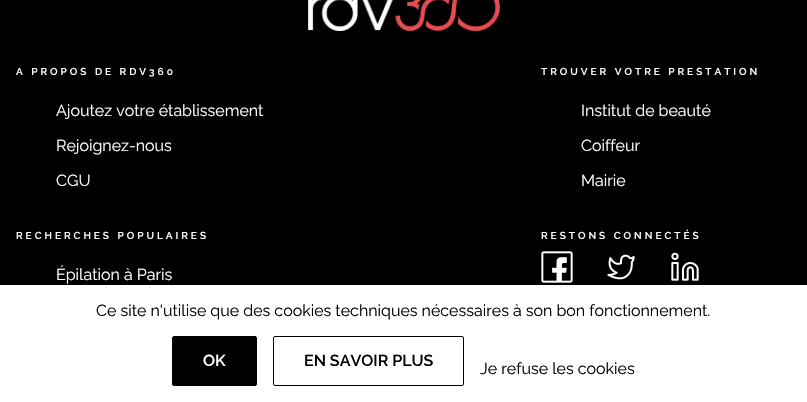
void draw(SkCanvas* canvas) {
  SkPaint paint;
  paint.setAntiAlias(true);
  auto face = [&](const char* family, int weight, float size, bool italic = false) {
    SkFontStyle style(weight, SkFontStyle::kNormal_Width,
      italic ? SkFontStyle::kItalic_Slant : SkFontStyle::kUpright_Slant);
    SkFont result(fontMgr->matchFamilyStyle(family, style), size);
    result.setSubpixel(true);
    return result;
  };
  auto writeSpaced = [&](const char* s, float x, float y, const SkFont& font, const SkPaint& ink, float letter, float word) {
    std::vector<SkGlyphID> glyphs(font.countText(s, strlen(s), SkTextEncoding::kUTF8));
    std::vector<float> xs(glyphs.size());
    font.textToGlyphs(s, strlen(s), SkTextEncoding::kUTF8, glyphs);
    font.getXPos(glyphs, xs, x);
    float extra = 0;
    for (size_t i = 0; i < glyphs.size(); i++) {
      xs[i] += extra;
      extra += letter + word * (glyphs[i] == font.unicharToGlyph(' '));
    }
    canvas->drawTextBlob(SkTextBlob::MakeFromPosHGlyphs(glyphs, xs, y, font), 0, 0, ink);
  };
  auto paste = [&](const char* path, float x, float y, float w, float h) {
    auto image = SkImages::DeferredFromEncodedData(SkData::MakeFromFileName(path));
    canvas->drawImageRect(image, SkRect::MakeXYWH(x, y, w, h), SkSamplingOptions());
  };
  canvas->clear(0xff000000);
  paste("img/1.png", 308, 0, 192, 31);
  paste("img/2.png", 541, 251, 32, 32);
  paste("img/3.png", 607, 254, 28, 26);
  paste("img/4.png", 671, 252, 28, 29);
  paint.setColor(0xffffffff);
  canvas->drawRect(SkRect::MakeXYWH(0, 285, 807, 117), paint);
  paint.setColor(0xff000000);
  canvas->drawRoundRect(SkRect::MakeXYWH(172.5f, 336.5f, 84, 49), 1.5f, 1.5f, paint);
  paint.setStroke(true);
  paint.setStrokeWidth(1);
  canvas->drawRoundRect(SkRect::MakeXYWH(172.5f, 336.5f, 84, 49), 1.5f, 1.5f, paint);
  canvas->drawRoundRect(SkRect::MakeXYWH(273.5f, 336.5f, 190, 49), 1.5f, 1.5f, paint);
  auto f0 = face("Raleway", 600, 10);
  paint.setStroke(false);
  paint.setColor(0xffffffff);
  writeSpaced("A PROPOS DE RDV360", 16, 75, f0, paint, 3, 0);
  auto f1 = face("Raleway", 400, 16);
  {
    const struct { const char* s; float x, y; } items[] = {
      {"Ajoutez votre établissement", 56, 116},
      {"Rejoignez-nous", 56, 151},
      {"CGU", 56, 186},
    };
    for (auto [s, x, y] : items) {
      canvas->drawString(s, x, y, f1, paint);
    }
  }
  writeSpaced("TROUVER VOTRE PRESTATION", 541, 75, f0, paint, 3, 0);
  {
    const struct { const char* s; float x, y; } items[] = {
      {"Institut de beauté", 581, 116},
      {"Coiffeur", 581, 151},
      {"Mairie", 581, 186},
    };
    for (auto [s, x, y] : items) {
      canvas->drawString(s, x, y, f1, paint);
    }
  }
  writeSpaced("RECHERCHES POPULAIRES", 16, 239, f0, paint, 3, 0);
  canvas->drawString("Épilation à Paris", 56, 280, f1, paint);
  writeSpaced("RESTONS CONNECTÉS", 541, 239, f0, paint, 3, 0);
  paint.setColor(0xff000000);
  canvas->drawString("Ce site n'utilise que des cookies techniques nécessaires à son bon fonctionnement.", 96, 316, f1, paint);
  auto f2 = face("Raleway", 600, 16);
  paint.setColor(0xffffffff);
  canvas->drawString("OK", 203, 366, f2, paint);
  paint.setColor(0xff000000);
  canvas->drawString("EN SAVOIR PLUS", 304, 366, f2, paint);
  canvas->drawString("Je refuse les cookies", 480, 374, f1, paint);
}
